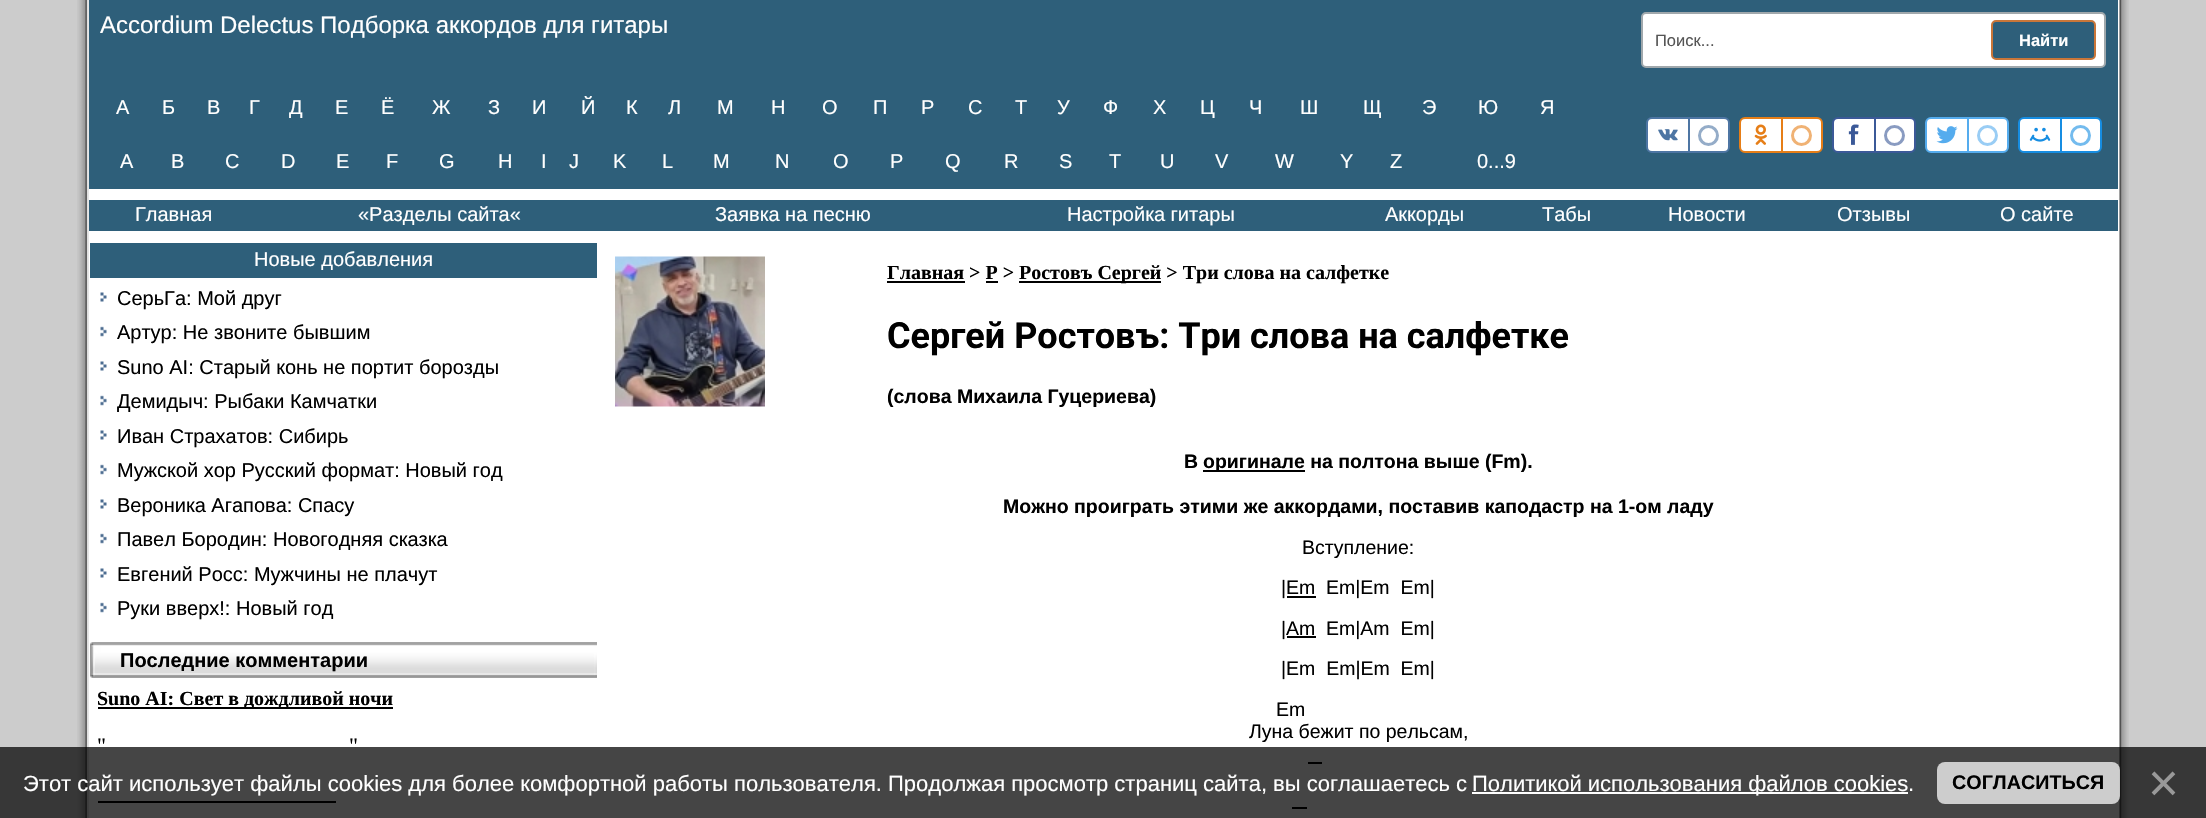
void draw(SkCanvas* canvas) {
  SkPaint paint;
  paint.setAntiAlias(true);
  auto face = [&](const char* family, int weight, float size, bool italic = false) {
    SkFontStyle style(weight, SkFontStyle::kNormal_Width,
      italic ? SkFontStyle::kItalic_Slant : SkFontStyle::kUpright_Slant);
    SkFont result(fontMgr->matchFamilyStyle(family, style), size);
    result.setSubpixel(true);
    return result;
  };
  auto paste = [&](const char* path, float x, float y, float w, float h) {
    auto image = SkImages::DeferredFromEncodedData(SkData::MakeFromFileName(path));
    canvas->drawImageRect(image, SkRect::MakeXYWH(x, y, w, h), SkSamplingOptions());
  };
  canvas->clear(0xffffffff);
  paint.setColor(0xffcccccc);
  canvas->drawRect(SkRect::MakeXYWH(0, 0, 89, 818), paint);
  paste("img/1.png", 77, 0, 12, 818);
  paint.setColor(0xff2e5f7a);
  canvas->drawRect(SkRect::MakeXYWH(89, 0, 2029, 189), paint);
  paint.setColor(0xffffffff);
  canvas->drawRoundRect(SkRect::MakeXYWH(1642, 13, 463, 54), 4, 4, paint);
  paint.setStroke(true);
  paint.setStrokeWidth(2);
  paint.setColor(0xffa0a8ac);
  canvas->drawRoundRect(SkRect::MakeXYWH(1642, 13, 463, 54), 4, 4, paint);
  paint.setStroke(false);
  paint.setColor(0xff2e5f7a);
  canvas->drawRoundRect(SkRect::MakeXYWH(1992, 21, 103, 38), 4, 4, paint);
  paint.setStroke(true);
  paint.setColor(0xffc97639);
  canvas->drawRoundRect(SkRect::MakeXYWH(1992, 21, 103, 38), 4, 4, paint);
  paint.setStroke(false);
  paint.setColor(0xffffffff);
  canvas->drawRoundRect(SkRect::MakeXYWH(1647, 118, 82, 34), 5, 5, paint);
  paint.setStroke(true);
  paint.setColor(0xff4d75a3);
  canvas->drawRoundRect(SkRect::MakeXYWH(1647, 118, 82, 34), 5, 5, paint);
  paste("img/2.png", 1658, 129, 20, 12);
  paint.setStroke(false);
  canvas->drawRect(SkRect::MakeXYWH(1688, 119, 2, 33), paint);
  paint.setStroke(true);
  paint.setStrokeWidth(3);
  paint.setColor(0xff94acc8);
  canvas->drawCircle(1708.5f, 135.5f, 9, paint);
  paint.setStroke(false);
  paint.setColor(0xffffffff);
  canvas->drawRoundRect(SkRect::MakeXYWH(1740, 118, 82, 34), 5, 5, paint);
  paint.setStroke(true);
  paint.setStrokeWidth(2);
  paint.setColor(0xffe67e17);
  canvas->drawRoundRect(SkRect::MakeXYWH(1740, 118, 82, 34), 5, 5, paint);
  paste("img/3.png", 1754, 124, 13, 21);
  paint.setStroke(false);
  canvas->drawRect(SkRect::MakeXYWH(1781, 119, 2, 33), paint);
  paint.setStroke(true);
  paint.setStrokeWidth(3);
  paint.setColor(0xfff0b274);
  canvas->drawCircle(1801.5f, 135.5f, 9, paint);
  paint.setStroke(false);
  paint.setColor(0xffffffff);
  canvas->drawRoundRect(SkRect::MakeXYWH(1833, 118, 82, 34), 5, 5, paint);
  paint.setStroke(true);
  paint.setStrokeWidth(2);
  paint.setColor(0xff3b5998);
  canvas->drawRoundRect(SkRect::MakeXYWH(1833, 118, 82, 34), 5, 5, paint);
  paste("img/4.png", 1848, 124, 11, 21);
  paint.setStroke(false);
  canvas->drawRect(SkRect::MakeXYWH(1874, 119, 2, 33), paint);
  paint.setStroke(true);
  paint.setStrokeWidth(3);
  paint.setColor(0xff899bc1);
  canvas->drawCircle(1894.5f, 135.5f, 9, paint);
  paint.setStroke(false);
  paint.setColor(0xffffffff);
  canvas->drawRoundRect(SkRect::MakeXYWH(1926, 118, 82, 34), 5, 5, paint);
  paint.setStroke(true);
  paint.setStrokeWidth(2);
  paint.setColor(0xff55acee);
  canvas->drawRoundRect(SkRect::MakeXYWH(1926, 118, 82, 34), 5, 5, paint);
  paste("img/5.png", 1936, 126, 22, 18);
  paint.setStroke(false);
  canvas->drawRect(SkRect::MakeXYWH(1967, 119, 2, 33), paint);
  paint.setStroke(true);
  paint.setStrokeWidth(3);
  paint.setColor(0xff99cdf5);
  canvas->drawCircle(1987.5f, 135.5f, 9, paint);
  paint.setStroke(false);
  paint.setColor(0xffffffff);
  canvas->drawRoundRect(SkRect::MakeXYWH(2019, 118, 82, 34), 5, 5, paint);
  paint.setStroke(true);
  paint.setStrokeWidth(2);
  paint.setColor(0xff168de2);
  canvas->drawRoundRect(SkRect::MakeXYWH(2019, 118, 82, 34), 5, 5, paint);
  paste("img/6.png", 2029, 127, 22, 15);
  paint.setStroke(false);
  canvas->drawRect(SkRect::MakeXYWH(2060, 119, 2, 33), paint);
  paint.setStroke(true);
  paint.setStrokeWidth(3);
  paint.setColor(0xff73bbee);
  canvas->drawCircle(2080.5f, 135.5f, 9, paint);
  paint.setStroke(false);
  paint.setColor(0xff2e5f7a);
  canvas->drawRect(SkRect::MakeXYWH(89, 200, 2029, 31), paint);
  canvas->drawRect(SkRect::MakeXYWH(90, 243, 507, 35), paint);
  paste("img/7.png", 100, 292, 7, 10);
  paste("img/8.png", 100, 326, 7, 11);
  paste("img/7.png", 100, 361, 7, 10);
  paste("img/8.png", 100, 395, 7, 11);
  paste("img/7.png", 100, 430, 7, 10);
  paste("img/8.png", 100, 464, 7, 11);
  paste("img/7.png", 100, 499, 7, 10);
  paste("img/8.png", 100, 533, 7, 11);
  paste("img/7.png", 100, 568, 7, 10);
  paste("img/8.png", 100, 602, 7, 11);
  paste("img/9.png", 90, 642, 507, 36);
  paint.setColor(0xff000000);
  canvas->drawRect(SkRect::MakeXYWH(98, 707, 295, 2), paint);
  canvas->drawRect(SkRect::MakeXYWH(98, 801, 238, 2), paint);
  paste("img/10.png", 615, 256, 150, 151);
  {
    const struct { float x, y, w, h; SkColor color; } items[] = {
      {887, 281, 78, 2, 0xff000000},
      {986, 281, 12, 2, 0xff000000},
      {1019, 281, 142, 2, 0xff000000},
      {1203, 470, 102, 2, 0xff000000},
      {1287, 596, 29, 2, 0xff000000},
      {1287, 636, 29, 2, 0xff000000},
      {1308, 762, 14, 2, 0xff000000},
      {1292, 807, 15, 2, 0xff000000},
      {2129, 0, 77, 818, 0xffcccccc},
    };
    for (auto [x, y, w, h, color] : items) {
      paint.setColor(color);
      canvas->drawRect(SkRect::MakeXYWH(x, y, w, h), paint);
    }
  }
  paste("img/11.png", 2118, 0, 11, 818);
  paint.setColor(0xba000000);
  canvas->drawRect(SkRect::MakeXYWH(0, 747, 2206, 71), paint);
  paint.setColor(0xffffffff);
  canvas->drawRect(SkRect::MakeXYWH(1472, 792, 436, 2), paint);
  paint.setColor(0xbaffffff);
  canvas->drawRoundRect(SkRect::MakeXYWH(1937, 762, 183, 42), 8, 8, paint);
  auto f0 = face("Liberation Sans", 400, 24);
  paint.setColor(0xffffffff);
  canvas->drawString("Accordium Delectus Подборка аккордов для гитары", 100, 33, f0, paint);
  auto f1 = face("Liberation Sans", 400, 16.5f);
  paint.setColor(0xff555555);
  canvas->drawString("Поиск...", 1655, 46, f1, paint);
  auto f2 = face("Liberation Sans", 700, 16.5f);
  paint.setColor(0xffffffff);
  canvas->drawString("Найти", 2019, 46, f2, paint);
  auto f3 = face("Liberation Sans", 400, 20);
  {
    const struct { const char* s; float x, y; } items[] = {
      {"А", 116, 114},
      {"Б", 162, 114},
      {"В", 207, 114},
      {"Г", 249, 114},
      {"Д", 289, 114},
      {"Е", 335, 114},
      {"Ё", 381, 114},
      {"Ж", 432, 114},
      {"З", 488, 114},
      {"И", 532, 114},
      {"Й", 581, 114},
      {"К", 626, 114},
      {"Л", 668, 114},
      {"М", 717, 114},
      {"Н", 771, 114},
      {"О", 822, 114},
      {"П", 873, 114},
      {"Р", 921, 114},
      {"С", 968, 114},
      {"Т", 1015, 114},
      {"У", 1057, 114},
      {"Ф", 1103, 114},
      {"Х", 1153, 114},
      {"Ц", 1200, 114},
      {"Ч", 1249, 114},
      {"Ш", 1300, 114},
      {"Щ", 1363, 114},
      {"Э", 1422, 114},
      {"Ю", 1478, 114},
      {"Я", 1540, 114},
      {"A", 120, 168},
      {"B", 171, 168},
      {"C", 225, 168},
      {"D", 281, 168},
      {"E", 336, 168},
      {"F", 386, 168},
      {"G", 439, 168},
      {"H", 498, 168},
      {"I", 541, 168},
      {"J", 569, 168},
      {"K", 613, 168},
      {"L", 662, 168},
      {"M", 713, 168},
      {"N", 775, 168},
      {"O", 833, 168},
      {"P", 890, 168},
      {"Q", 945, 168},
      {"R", 1004, 168},
      {"S", 1059, 168},
      {"T", 1109, 168},
      {"U", 1160, 168},
      {"V", 1215, 168},
      {"W", 1275, 168},
      {"Y", 1340, 168},
      {"Z", 1390, 168},
      {"0...9", 1477, 168},
      {"Главная", 135, 221},
      {"«Разделы сайта«", 358, 221},
      {"Заявка на песню", 715, 221},
      {"Настройка гитары", 1067, 221},
      {"Аккорды", 1385, 221},
      {"Табы", 1542, 221},
      {"Новости", 1668, 221},
      {"Отзывы", 1837, 221},
      {"О сайте", 2000, 221},
      {"Новые добавления", 254, 266},
    };
    for (auto [s, x, y] : items) {
      canvas->drawString(s, x, y, f3, paint);
    }
  }
  paint.setColor(0xff000000);
  {
    const struct { const char* s; float x, y; } items[] = {
      {"СерьГа: Мой друг", 117, 305},
      {"Артур: Не звоните бывшим", 117, 339},
      {"Suno AI: Старый конь не портит борозды", 117, 374},
      {"Демидыч: Рыбаки Камчатки", 117, 408},
      {"Иван Страхатов: Сибирь", 117, 443},
      {"Мужской хор Русский формат: Новый год", 117, 477},
      {"Вероника Агапова: Спасу", 117, 512},
      {"Павел Бородин: Новогодняя сказка", 117, 546},
      {"Евгений Росс: Мужчины не плачут", 117, 581},
      {"Руки вверх!: Новый год", 117, 615},
    };
    for (auto [s, x, y] : items) {
      canvas->drawString(s, x, y, f3, paint);
    }
  }
  auto f4 = face("Liberation Sans", 700, 20);
  canvas->drawString("Последние комментарии", 120, 667, f4, paint);
  auto f5 = face("Liberation Serif", 700, 20);
  canvas->drawString("Suno AI: Свет в дождливой ночи", 97, 705, f5, paint);
  auto f6 = face("Liberation Serif", 400, 22);
  canvas->drawString("\"", 97, 753, f6, paint);
  canvas->drawString("\"", 349, 753, f6, paint);
  canvas->drawString("Главная > Р >", 887, 279, f5, paint);
  canvas->drawString("Ростовъ Сергей > Три слова на салфетке", 1019, 279, f5, paint);
  auto f7 = face("Roboto", 700, 36);
  canvas->drawString("Сергей Ростовъ: Три слова на салфетке", 887, 348, f7, paint);
  auto f8 = face("Liberation Sans", 700, 19.5f);
  {
    const struct { const char* s; float x, y; } items[] = {
      {"(слова Михаила Гуцериева)", 887, 403},
      {"В", 1184, 468},
      {"оригинале на полтона выше (Fm).", 1203, 468},
      {"Можно проиграть этими же аккордами, поставив каподастр на 1-ом ладу", 1003, 513},
    };
    for (auto [s, x, y] : items) {
      canvas->drawString(s, x, y, f8, paint);
    }
  }
  auto f9 = face("Liberation Sans", 400, 19.5f);
  {
    const struct { const char* s; float x, y; } items[] = {
      {"Вступление:", 1302, 554},
      {"|Em", 1281, 594},
      {"Em|Em  Em|", 1326, 594},
      {"|Am", 1281, 635},
      {"Em|Am  Em|", 1326, 635},
      {"|Em  Em|Em  Em|", 1281, 675},
      {"Em", 1276, 716},
      {"Луна бежит по рельсам,", 1249, 738},
    };
    for (auto [s, x, y] : items) {
      canvas->drawString(s, x, y, f9, paint);
    }
  }
  auto f10 = face("Liberation Sans", 400, 22);
  paint.setColor(0xffffffff);
  {
    const struct { const char* s; float x, y; } items[] = {
      {"Этот сайт использует файлы cookies для более комфортной работы пользователя. Продолжая просмотр страниц сайта, вы соглашаетесь с", 23, 791},
      {"Политикой использования файлов cookies", 1472, 791},
      {".", 1908, 791},
    };
    for (auto [s, x, y] : items) {
      canvas->drawString(s, x, y, f10, paint);
    }
  }
  auto f11 = face("Liberation Sans", 700, 19.75f);
  paint.setColor(0xff000000);
  canvas->drawString("СОГЛАСИТЬСЯ", 1952, 789, f11, paint);
  auto f12 = face("Liberation Sans", 400, 53);
  paint.setColor(0xff999999);
  canvas->drawString("×", 2148, 801, f12, paint);
}
